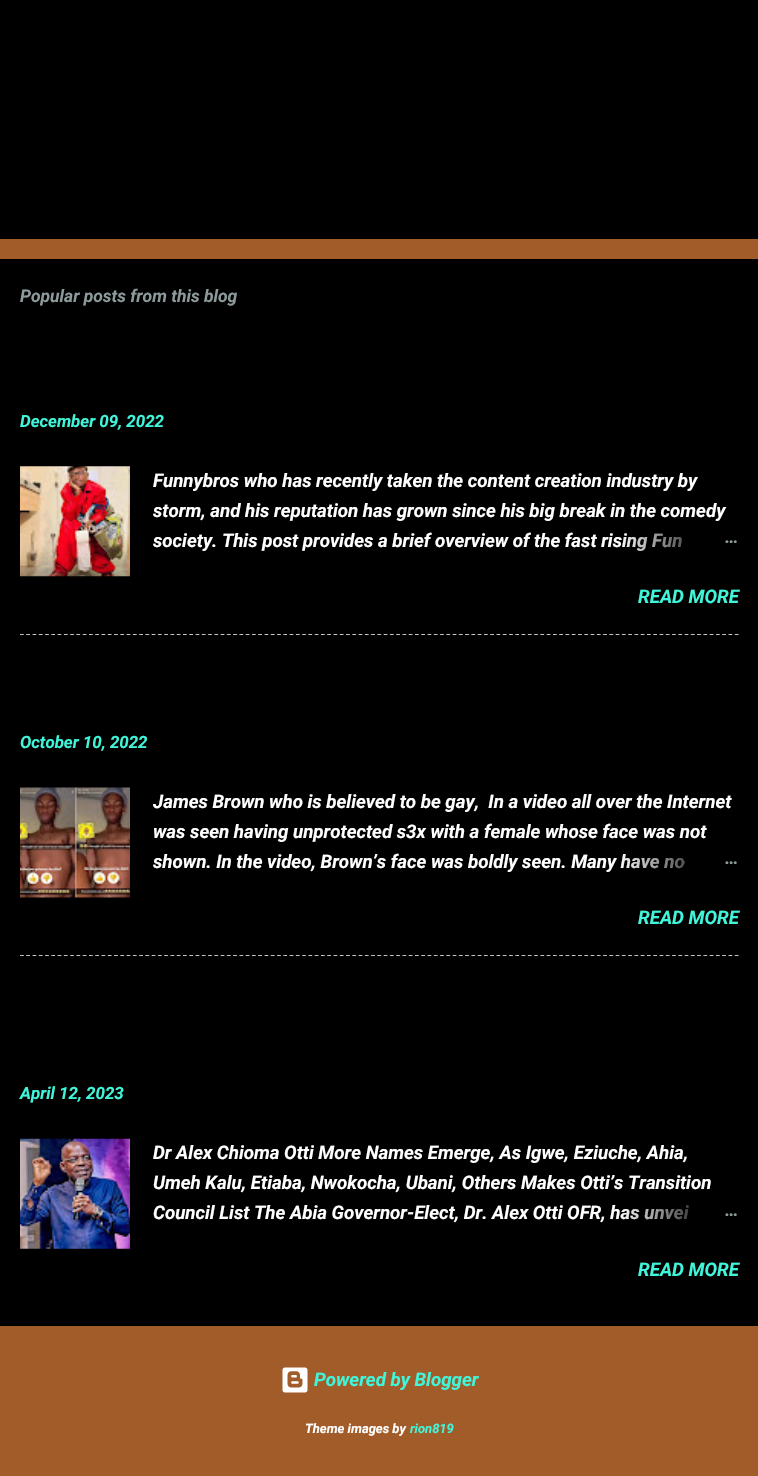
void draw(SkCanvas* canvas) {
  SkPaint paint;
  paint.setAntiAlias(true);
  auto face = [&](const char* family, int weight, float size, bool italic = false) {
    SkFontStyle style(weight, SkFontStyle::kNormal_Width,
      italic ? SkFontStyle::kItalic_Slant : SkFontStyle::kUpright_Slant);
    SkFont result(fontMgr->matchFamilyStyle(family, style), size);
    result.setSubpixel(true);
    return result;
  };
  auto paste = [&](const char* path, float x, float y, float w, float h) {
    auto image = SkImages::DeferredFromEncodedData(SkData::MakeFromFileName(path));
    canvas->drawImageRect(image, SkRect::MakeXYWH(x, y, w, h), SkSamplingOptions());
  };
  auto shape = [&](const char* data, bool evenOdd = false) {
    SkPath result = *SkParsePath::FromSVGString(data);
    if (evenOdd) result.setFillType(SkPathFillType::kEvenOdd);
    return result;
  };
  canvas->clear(0xffa15c2a);
  paint.setColor(0xff000000);
  canvas->drawRect(SkRect::MakeXYWH(0, 0, 758, 239), paint);
  canvas->drawRect(SkRect::MakeXYWH(0, 259, 758, 1067), paint);
  paste("img/1.png", 20, 466, 110, 111);
  paint.setStroke(true);
  paint.setStrokeWidth(1.2f);
  paint.setColor(0xffc4c4c4);
  paint.setPathEffect(SkDashPathEffect::Make({{3.75f, 2.52f}}, 0));
  canvas->drawPath(shape("M20 634.5H739"), paint);
  paint.setPathEffect(nullptr);
  paste("img/2.png", 20, 787, 110, 111);
  paint.setPathEffect(SkDashPathEffect::Make({{3.75f, 2.52f}}, 0));
  canvas->drawPath(shape("M20 955.5H739"), paint);
  paint.setPathEffect(nullptr);
  paste("img/3.png", 20, 1138, 110, 111);
  paste("img/4.png", 282, 1367, 26, 26);
  auto f0 = face("Roboto", 700, 17.5f, true);
  paint.setStroke(false);
  paint.setColor(0xff8d9a9c);
  canvas->drawString("Popular posts from this blog", 20, 302, f0, paint);
  auto f1 = face("Roboto", 700, 16.9f, true);
  paint.setColor(0xff40f5d9);
  canvas->drawString("December 09, 2022", 20, 427, f1, paint);
  auto f2 = face("Roboto", 700, 18.75f, true);
  paint.setColor(0xffffffff);
  {
    const struct { const char* s; float x, y; } items[] = {
      {"Funnybros who has recently taken the content creation industry by", 153, 487},
      {"storm, and his reputation has grown since his big break in the comedy", 153, 517},
      {"society. This post provides a brief overview of the fast rising Fun", 153, 547},
    };
    for (auto [s, x, y] : items) {
      canvas->drawString(s, x, y, f2, paint);
    }
  }
  {
    const SkColor colors[] = {0xff000000, 0xff000000, 0x00000000};
    const float stops[] = {0, 0.2f, 1};
    const SkPoint ends[] = {{739, 541}, {619, 541}};
    paint.setShader(SkGradientShader::MakeLinear(ends, colors, stops, 3, SkTileMode::kClamp));
    paint.setAlpha(255);
  }
  canvas->drawRect(SkRect::MakeXYWH(622, 533, 60, 18), paint);
  paint.setShader(nullptr);
  paint.setColor(0xff8d9a9c);
  canvas->drawString("…", 725, 543, f2, paint);
  paint.setColor(0xff40f5d9);
  canvas->drawString("READ MORE", 638, 603, f2, paint);
  canvas->drawString("October 10, 2022", 20, 748, f1, paint);
  paint.setColor(0xffffffff);
  {
    const struct { const char* s; float x, y; } items[] = {
      {"James Brown who is believed to be gay,  In a video all over the Internet", 153, 808},
      {"was seen having unprotected s3x with a female whose face was not", 153, 838},
      {"shown. In the video, Brown’s face was boldly seen. Many have no", 153, 868},
    };
    for (auto [s, x, y] : items) {
      canvas->drawString(s, x, y, f2, paint);
    }
  }
  {
    const SkColor colors[] = {0xff000000, 0xff000000, 0x00000000};
    const float stops[] = {0, 0.2f, 1};
    const SkPoint ends[] = {{739, 863}, {619, 863}};
    paint.setShader(SkGradientShader::MakeLinear(ends, colors, stops, 3, SkTileMode::kClamp));
    paint.setAlpha(255);
  }
  canvas->drawRect(SkRect::MakeXYWH(621, 854, 63, 15), paint);
  paint.setShader(nullptr);
  paint.setColor(0xff8d9a9c);
  canvas->drawString("…", 725, 864, f2, paint);
  paint.setColor(0xff40f5d9);
  canvas->drawString("READ MORE", 638, 924, f2, paint);
  canvas->drawString("April 12, 2023", 20, 1099, f1, paint);
  paint.setColor(0xffffffff);
  {
    const struct { const char* s; float x, y; } items[] = {
      {"Dr Alex Chioma Otti More Names Emerge, As Igwe, Eziuche, Ahia,", 153, 1159},
      {"Umeh Kalu, Etiaba, Nwokocha, Ubani, Others Makes Otti’s Transition", 153, 1189},
      {"Council List The Abia Governor-Elect, Dr. Alex Otti OFR, has unvei", 153, 1219},
    };
    for (auto [s, x, y] : items) {
      canvas->drawString(s, x, y, f2, paint);
    }
  }
  {
    const SkColor colors[] = {0xff000000, 0xff000000, 0x00000000};
    const float stops[] = {0, 0.2f, 1};
    const SkPoint ends[] = {{739, 1214}, {619, 1214}};
    paint.setShader(SkGradientShader::MakeLinear(ends, colors, stops, 3, SkTileMode::kClamp));
    paint.setAlpha(255);
  }
  canvas->drawRect(SkRect::MakeXYWH(621, 1205, 68, 15), paint);
  paint.setShader(nullptr);
  paint.setColor(0xff8d9a9c);
  canvas->drawString("…", 725, 1216, f2, paint);
  paint.setColor(0xff40f5d9);
  canvas->drawString("READ MORE", 638, 1276, f2, paint);
  canvas->drawString("Powered by Blogger", 314, 1386, f2, paint);
  auto f3 = face("Roboto", 700, 13, true);
  paint.setColor(0xffffffff);
  canvas->drawString("Theme images by", 305, 1433, f3, paint);
  paint.setColor(0xff40f5d9);
  canvas->drawString("rion819", 410, 1433, f3, paint);
}
